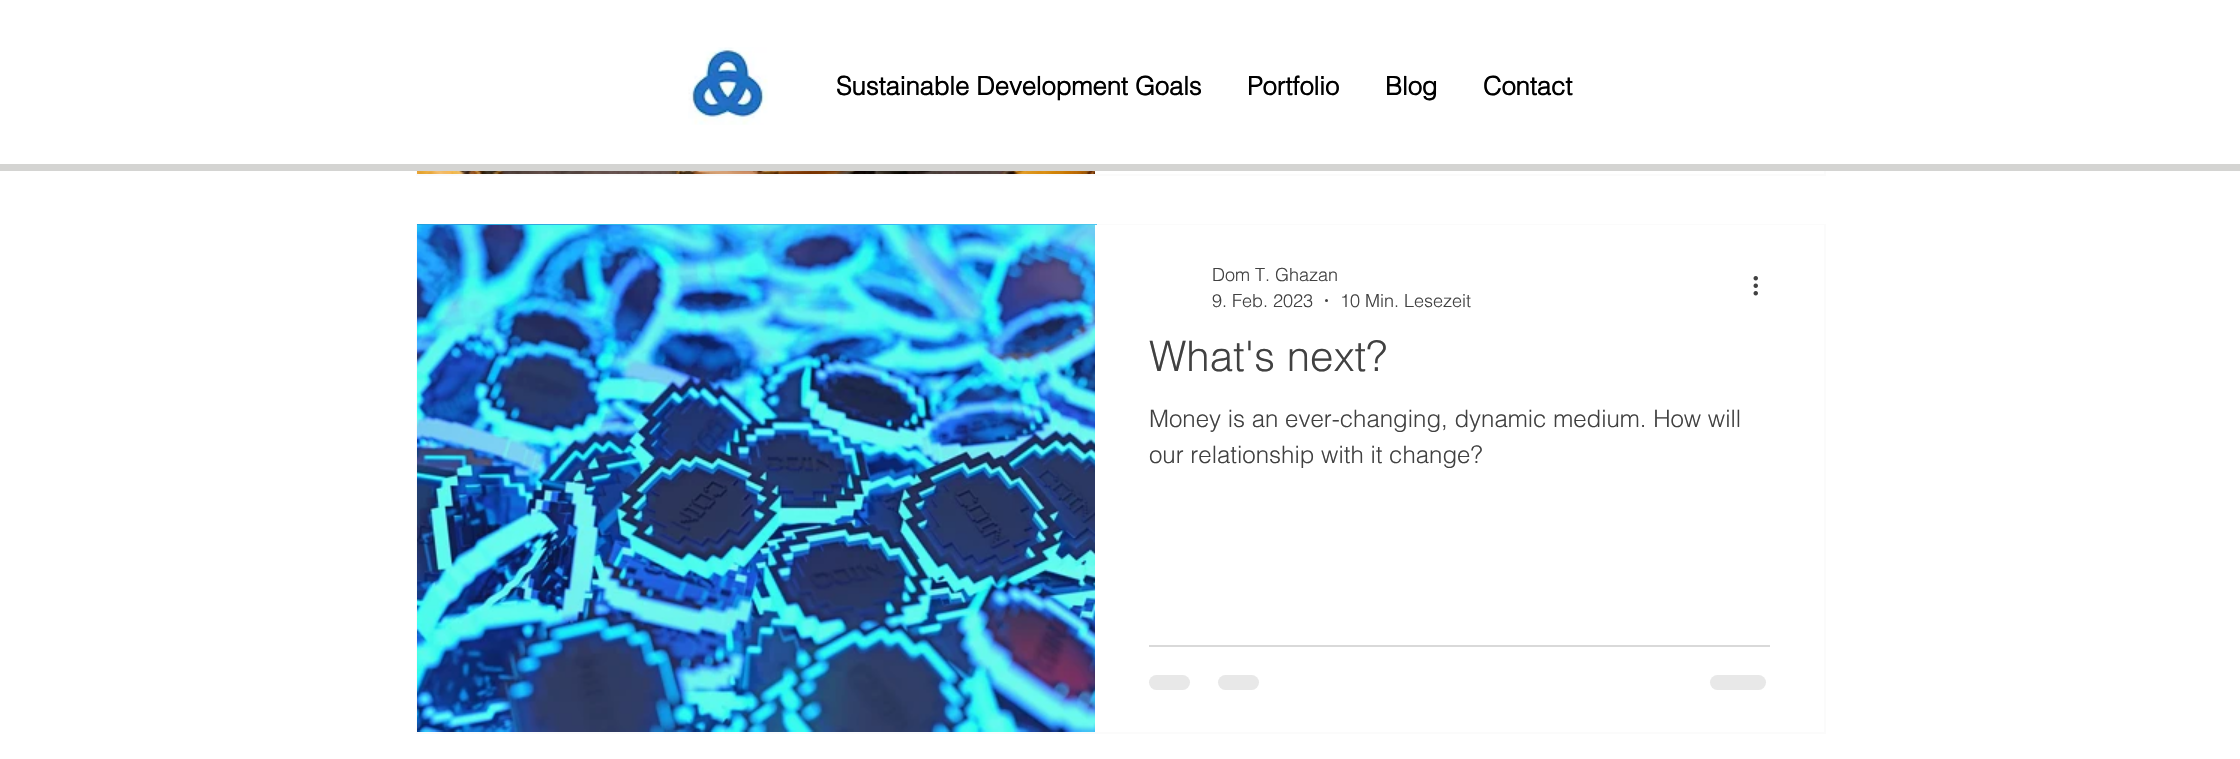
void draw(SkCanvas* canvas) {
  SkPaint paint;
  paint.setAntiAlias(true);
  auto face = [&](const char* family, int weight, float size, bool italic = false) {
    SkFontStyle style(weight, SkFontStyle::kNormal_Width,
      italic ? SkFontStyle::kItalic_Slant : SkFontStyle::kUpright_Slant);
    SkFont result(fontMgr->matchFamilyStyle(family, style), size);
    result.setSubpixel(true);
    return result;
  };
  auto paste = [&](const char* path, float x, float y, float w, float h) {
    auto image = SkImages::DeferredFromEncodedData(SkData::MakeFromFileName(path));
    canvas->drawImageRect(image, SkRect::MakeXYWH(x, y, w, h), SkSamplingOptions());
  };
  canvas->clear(0xffffffff);
  paint.setStroke(true);
  paint.setStrokeWidth(2);
  paint.setColor(0xfffbfbfb);
  canvas->drawRect(SkRect::MakeXYWH(417, -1, 1408, 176), paint);
  paint.setStroke(false);
  paint.setColor(0xffffffff);
  canvas->drawRect(SkRect::MakeXYWH(416, 0, 1410, 164), paint);
  paint.setColor(0xffd4d4d2);
  canvas->drawRect(SkRect::MakeXYWH(0, 164, 2240, 7), paint);
  paste("img/1.png", 688, 47, 80, 78);
  paste("img/2.png", 417, 171, 678, 3);
  paint.setStroke(true);
  paint.setColor(0xfffbfbfb);
  canvas->drawRect(SkRect::MakeXYWH(417, 225, 1408, 508), paint);
  paste("img/3.png", 417, 224, 680, 1);
  paste("img/4.png", 417, 225, 678, 507);
  paint.setStroke(false);
  paint.setColor(0xffffffff);
  canvas->drawRect(SkRect::MakeXYWH(1095, 225, 729, 1), paint);
  paint.setColor(0xff414141);
  canvas->drawCircle(1326.5f, 300.5f, 1.5f, paint);
  paste("img/5.png", 1753, 276, 5, 20);
  paint.setColor(0xffd9d9d9);
  canvas->drawRect(SkRect::MakeXYWH(1149, 645, 621, 2), paint);
  paint.setColor(0xffe8e8e8);
  canvas->drawRoundRect(SkRect::MakeXYWH(1149, 675, 41, 15), 7.5f, 7.5f, paint);
  canvas->drawRoundRect(SkRect::MakeXYWH(1218, 675, 41, 15), 7.5f, 7.5f, paint);
  canvas->drawRoundRect(SkRect::MakeXYWH(1710, 675, 56, 15), 7.5f, 7.5f, paint);
  auto f0 = face("helvetica", 700, 25.5f);
  paint.setColor(0xff000000);
  {
    const struct { const char* s; float x, y; } items[] = {
      {"Sustainable Development Goals", 836, 95},
      {"Portfolio", 1247, 95},
      {"Blog", 1385, 95},
      {"Contact", 1483, 95},
    };
    for (auto [s, x, y] : items) {
      canvas->drawString(s, x, y, f0, paint);
    }
  }
  auto f1 = face("helvetica", 300, 18);
  paint.setColor(0xff414141);
  {
    const struct { const char* s; float x, y; } items[] = {
      {"Dom T. Ghazan", 1212, 281},
      {"9. Feb. 2023", 1212, 307},
      {"10 Min. Lesezeit", 1340, 307},
    };
    for (auto [s, x, y] : items) {
      canvas->drawString(s, x, y, f1, paint);
    }
  }
  auto f2 = face("helvetica", 300, 42);
  canvas->drawString("What's next?", 1149, 371, f2, paint);
  auto f3 = face("helvetica", 300, 24);
  canvas->drawString("Money is an ever-changing, dynamic medium. How will", 1149, 427, f3, paint);
  canvas->drawString("our relationship with it change?", 1149, 463, f3, paint);
}
